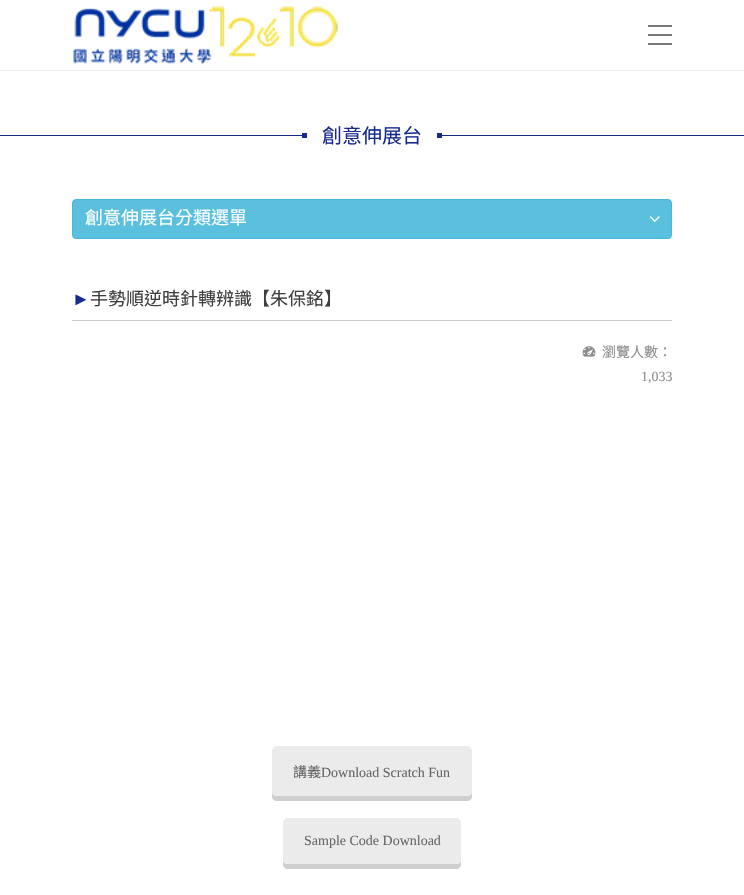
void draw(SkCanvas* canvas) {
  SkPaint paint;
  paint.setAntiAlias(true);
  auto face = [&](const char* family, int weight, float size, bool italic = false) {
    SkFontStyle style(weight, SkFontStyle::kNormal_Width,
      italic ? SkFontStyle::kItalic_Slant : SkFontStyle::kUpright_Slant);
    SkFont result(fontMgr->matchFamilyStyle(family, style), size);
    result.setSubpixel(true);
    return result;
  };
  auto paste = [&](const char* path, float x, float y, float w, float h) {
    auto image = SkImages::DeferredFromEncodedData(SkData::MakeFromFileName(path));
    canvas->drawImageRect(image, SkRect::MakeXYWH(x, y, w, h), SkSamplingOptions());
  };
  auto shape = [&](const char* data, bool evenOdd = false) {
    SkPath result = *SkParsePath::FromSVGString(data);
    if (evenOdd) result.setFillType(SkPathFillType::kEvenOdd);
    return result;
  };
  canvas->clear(0xffffffff);
  paint.setColor(0xffebebeb);
  canvas->drawRect(SkRect::MakeXYWH(0, 70, 744, 1), paint);
  paste("img/1.png", 73, 6, 265, 58);
  {
    const struct { float x, y, w, h; SkColor color; } items[] = {
      {648, 34, 24, 2, 0xff797979},
      {648, 25, 24, 2, 0xff797979},
      {648, 43, 24, 2, 0xff797979},
      {0, 135, 744, 1, 0xff162b8c},
      {302, 135, 140, 1, 0xffffffff},
      {302, 133, 5, 5, 0xff162b8c},
      {437, 133, 5, 5, 0xff162b8c},
    };
    for (auto [x, y, w, h, color] : items) {
      paint.setColor(color);
      canvas->drawRect(SkRect::MakeXYWH(x, y, w, h), paint);
    }
  }
  paint.setColor(0xff5bc0de);
  canvas->drawRoundRect(SkRect::MakeXYWH(72.5f, 199.5f, 599, 39), 3.5f, 3.5f, paint);
  paint.setStroke(true);
  paint.setStrokeWidth(1);
  paint.setColor(0xff46b8da);
  canvas->drawRoundRect(SkRect::MakeXYWH(72.5f, 199.5f, 599, 39), 3.5f, 3.5f, paint);
  paste("img/2.png", 649, 216, 11, 6);
  paint.setStroke(false);
  paint.setColor(0xffcccccc);
  canvas->drawRect(SkRect::MakeXYWH(72, 320, 600, 1), paint);
  paste("img/3.png", 582, 346, 14, 11);
  paint.setColor(0xffcfcfcf);
  canvas->drawPath(shape("M272 791V796C272 799 274 801 277 801H467C470 801 472 799 472 796V791C472 794 470 796 467 796H277C274 796 272 794 272 791Z"), paint);
  paint.setColor(0xffebebeb);
  canvas->drawRoundRect(SkRect::MakeXYWH(272, 746, 200, 50), 5, 5, paint);
  paint.setColor(0xffcfcfcf);
  canvas->drawPath(shape("M283 859V864C283 867 285 869 288 869H456C459 869 461 867 461 864V859C461 862 459 864 456 864H288C285 864 283 862 283 859Z"), paint);
  paint.setColor(0xffebebeb);
  canvas->drawRoundRect(SkRect::MakeXYWH(283, 818, 178, 46), 5, 5, paint);
  auto f0 = face("Noto Sans CJK TC", 400, 20);
  paint.setColor(0xff162b8c);
  canvas->drawString("創意伸展台", 322, 143, f0, paint);
  auto f1 = face("Noto Sans CJK TC", 400, 18);
  paint.setColor(0xffffffff);
  canvas->drawString("創意伸展台分類選單", 85, 224, f1, paint);
  auto f2 = face("Liberation Serif", 400, 18);
  paint.setColor(0xff162b8c);
  canvas->drawString("►", 72, 305, f2, paint);
  paint.setColor(0xff3f3f3f);
  canvas->drawString("手勢順逆時針轉辨識【朱保銘】", 90, 305, f1, paint);
  auto f3 = face("Noto Sans CJK TC", 400, 14);
  paint.setColor(0xff8d8d8d);
  canvas->drawString("瀏覽人數：", 602, 357, f3, paint);
  auto f4 = face("Liberation Serif", 400, 14);
  canvas->drawString("1,033", 641, 381, f4, paint);
  paint.setColor(0xff666666);
  canvas->drawString("講義", 293, 777, f3, paint);
  canvas->drawString("Download Scratch Fun", 321, 777, f4, paint);
  canvas->drawString("Sample Code Download", 304, 845, f4, paint);
}
